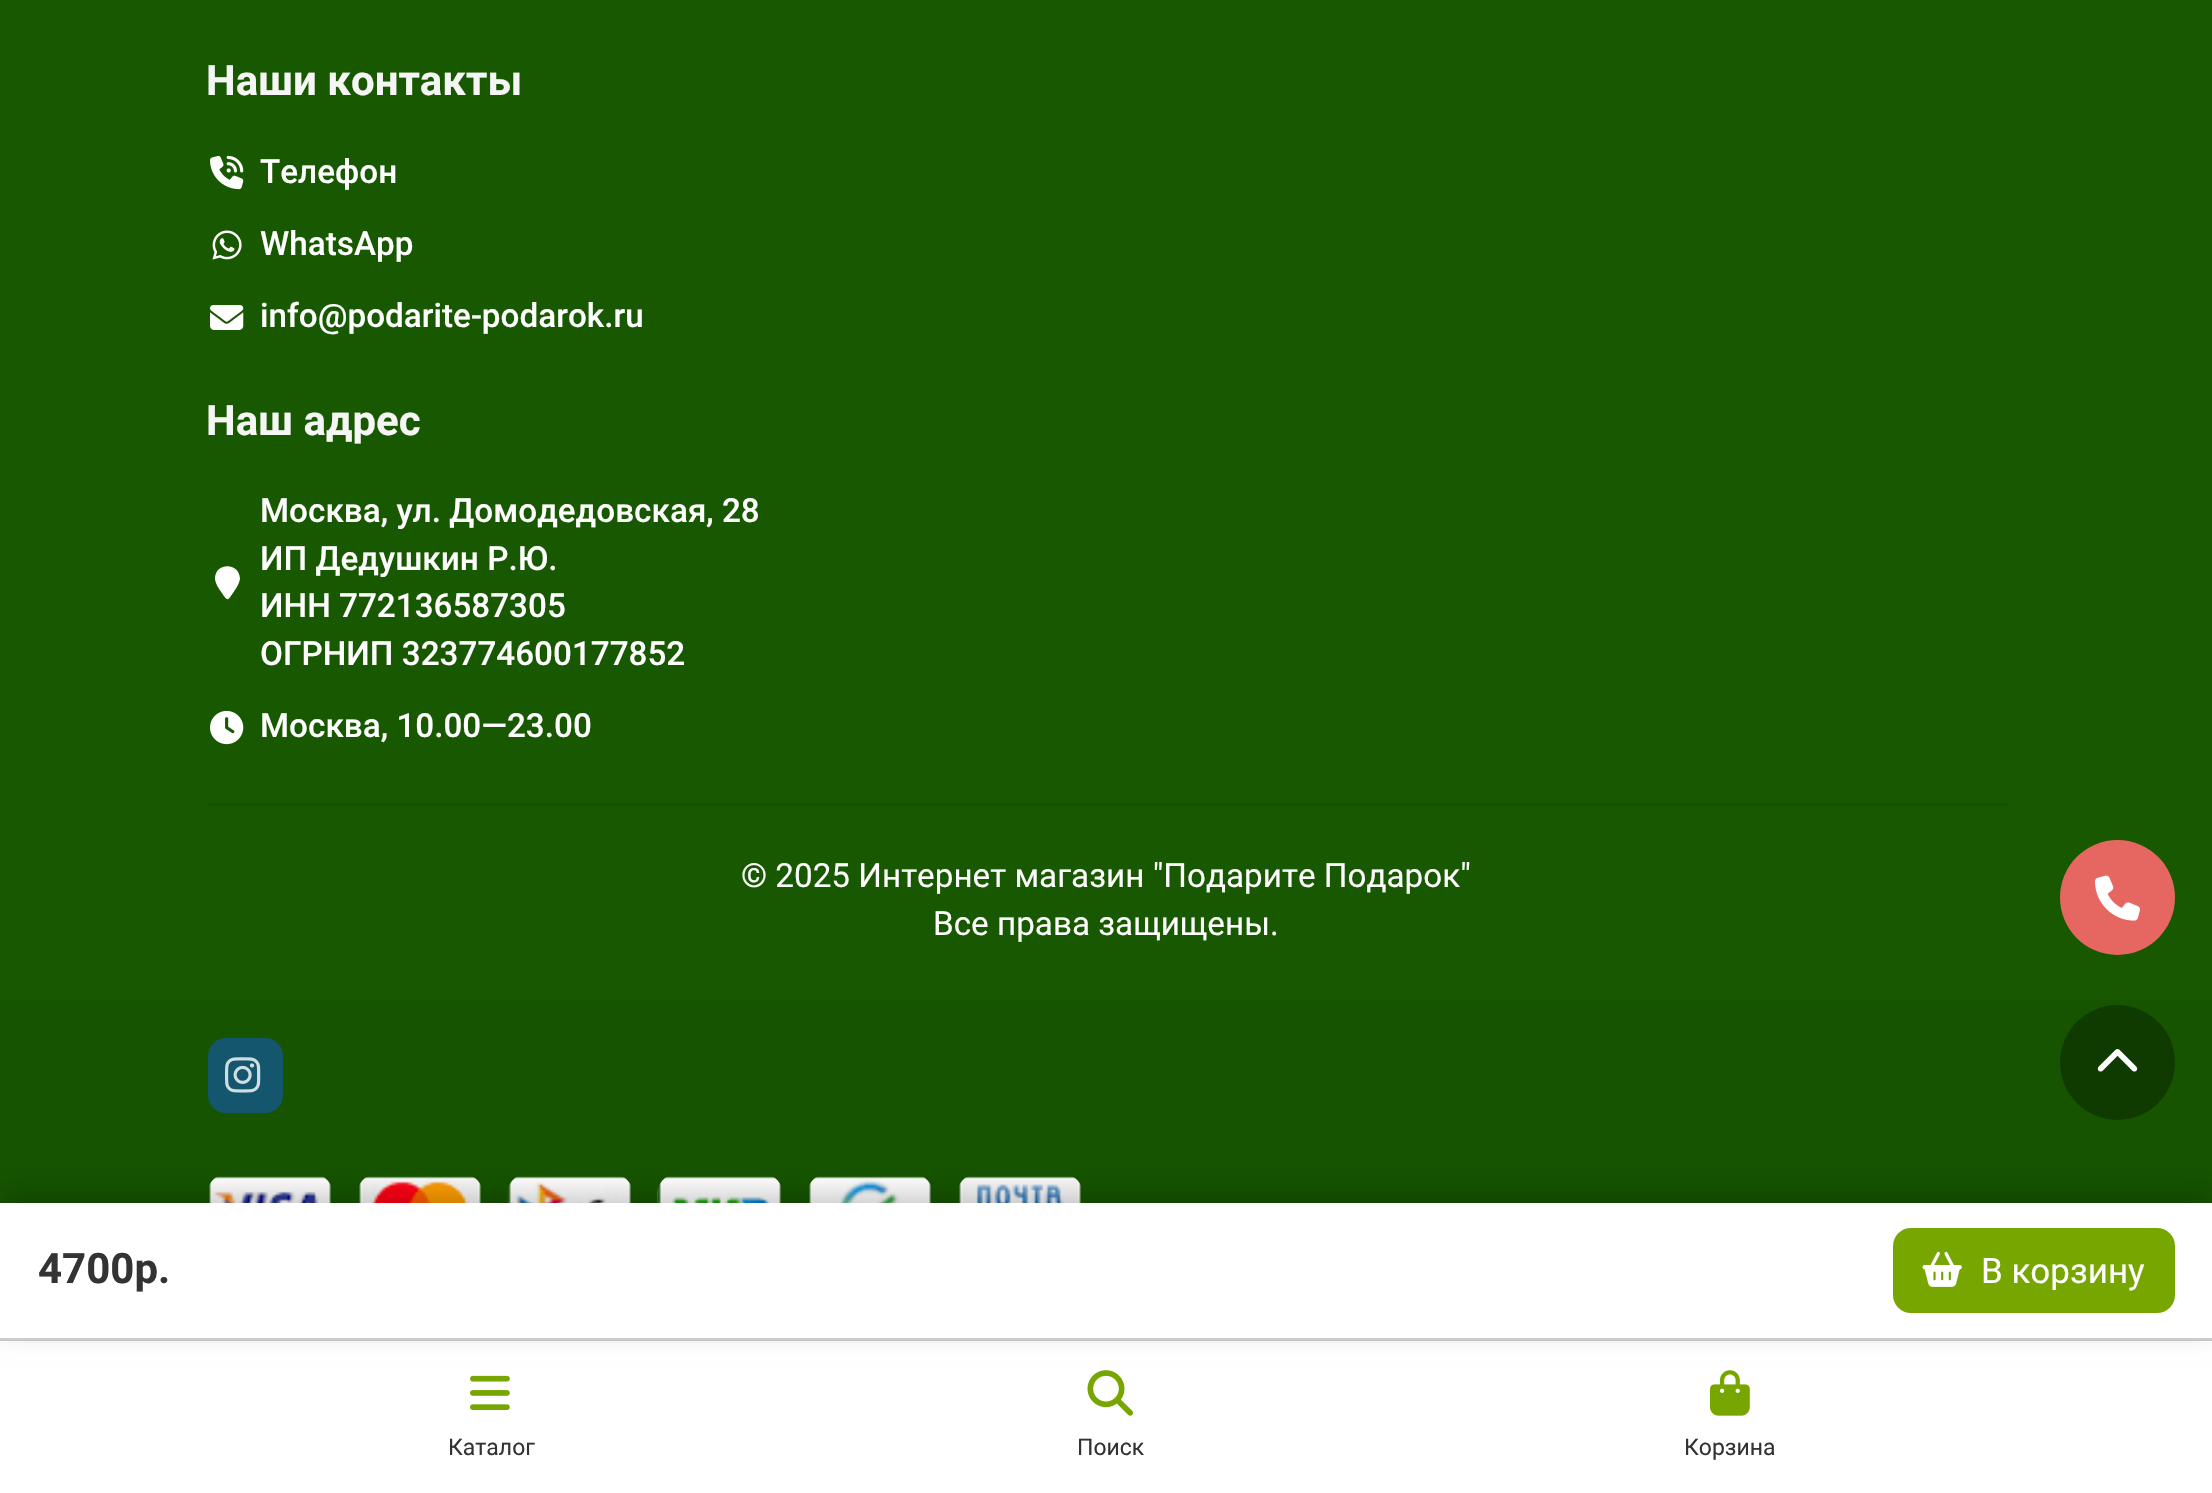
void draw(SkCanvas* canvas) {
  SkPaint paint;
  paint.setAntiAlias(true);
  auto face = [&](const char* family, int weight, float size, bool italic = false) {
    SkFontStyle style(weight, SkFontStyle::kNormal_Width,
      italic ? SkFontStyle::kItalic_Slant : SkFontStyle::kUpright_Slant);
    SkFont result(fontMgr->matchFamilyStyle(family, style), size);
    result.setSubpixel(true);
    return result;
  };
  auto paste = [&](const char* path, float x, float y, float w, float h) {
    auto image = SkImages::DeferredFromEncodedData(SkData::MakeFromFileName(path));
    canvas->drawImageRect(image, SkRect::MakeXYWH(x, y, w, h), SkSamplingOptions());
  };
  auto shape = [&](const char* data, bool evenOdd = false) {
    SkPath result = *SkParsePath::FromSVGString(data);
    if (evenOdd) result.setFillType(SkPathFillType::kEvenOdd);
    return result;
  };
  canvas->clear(0xff175800);
  paste("img/1.png", 210, 155, 34, 35);
  paste("img/2.png", 212, 230, 30, 30);
  paste("img/3.png", 210, 305, 34, 25);
  paint.setColor(0xffffffff);
  canvas->drawPath(shape("M240 578.5C239.5 583 236.5 588 234 591.5C227.5 601 228 602 221.5 592.5C219 589 215 583 215 578.5C215 562 239.5 562 240 578.5Z"), paint);
  paste("img/4.png", 210, 710, 34, 35);
  paint.setColor(0xff155100);
  canvas->drawRect(SkRect::MakeXYWH(208, 803, 1800, 3), paint);
  paint.setColor(0xff165400);
  canvas->drawRect(SkRect::MakeXYWH(0, 1000, 2212, 203), paint);
  paint.setColor(0xff13566d);
  canvas->drawRoundRect(SkRect::MakeXYWH(208, 1038, 75, 75), 18, 18, paint);
  paste("img/5.png", 225, 1057, 36, 36);
  paste("img/6.png", 209, 1176, 122, 27);
  paste("img/7.png", 359, 1176, 122, 27);
  paste("img/8.png", 507, 1176, 124, 27);
  paste("img/9.png", 657, 1176, 124, 27);
  paste("img/10.png", 809, 1176, 122, 27);
  paste("img/11.png", 959, 1176, 122, 27);
  paint.setColor(0xffe66761);
  canvas->drawCircle(2117.5f, 897.5f, 57.5f, paint);
  paste("img/12.png", 2095, 875, 45, 46);
  paint.setColor(0xff0f3b00);
  canvas->drawCircle(2117.5f, 1062.5f, 57.5f, paint);
  paste("img/13.png", 2097, 1049, 41, 23);
  paint.setColor(0xffffffff);
  canvas->drawRect(SkRect::MakeXYWH(0, 1340, 2212, 153), paint);
  paint.setColor(0x33000000);
  paint.setMaskFilter(SkMaskFilter::MakeBlur(kNormal_SkBlurStyle, 12.5f));
  canvas->drawRect(SkRect::MakeXYWH(0, 1193, 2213, 137), paint);
  paint.setMaskFilter(nullptr);
  paint.setColor(0xffffffff);
  canvas->drawRect(SkRect::MakeXYWH(0, 1203, 2212, 137), paint);
  paint.setColor(0x33000000);
  canvas->drawRect(SkRect::MakeXYWH(0, 1338, 2212, 3), paint);
  paint.setColor(0xff77a600);
  canvas->drawRoundRect(SkRect::MakeXYWH(1893, 1228, 282, 85), 18, 18, paint);
  paste("img/14.png", 1922, 1251, 40, 36);
  paste("img/15.png", 470, 1375, 40, 35);
  paste("img/16.png", 1087, 1370, 46, 46);
  paste("img/17.png", 1710, 1370, 40, 46);
  auto f0 = face("Roboto", 700, 42);
  paint.setColor(0xfff5f5f5);
  canvas->drawString("Наши контакты", 206, 95, f0, paint);
  auto f1 = face("Roboto", 500, 33.25f);
  paint.setColor(0xffffffff);
  {
    const struct { const char* s; float x, y; } items[] = {
      {"Телефон", 260, 183},
      {"WhatsApp", 260, 255},
      {"info@podarite-podarok.ru", 260, 327},
    };
    for (auto [s, x, y] : items) {
      canvas->drawString(s, x, y, f1, paint);
    }
  }
  paint.setColor(0xfff5f5f5);
  canvas->drawString("Наш адрес", 206, 435, f0, paint);
  paint.setColor(0xffffffff);
  {
    const struct { const char* s; float x, y; } items[] = {
      {"Москва, ул. Домодедовская, 28", 260, 522},
      {"ИП Дедушкин Р.Ю.", 260, 570},
      {"ИНН 772136587305", 260, 617},
      {"ОГРНИП 323774600177852", 260, 665},
      {"Москва, 10.00—23.00", 260, 737},
    };
    for (auto [s, x, y] : items) {
      canvas->drawString(s, x, y, f1, paint);
    }
  }
  auto f2 = face("Roboto", 400, 33.25f);
  canvas->drawString("© 2025 Интернет магазин \"Подарите Подарок\"", 741, 887, f2, paint);
  canvas->drawString("Все права защищены.", 933, 935, f2, paint);
  paint.setColor(0xff333333);
  canvas->drawString("4700р.", 38, 1283, f0, paint);
  auto f3 = face("Roboto", 400, 35);
  paint.setColor(0xffffffff);
  canvas->drawString("В корзину", 1981, 1283, f3, paint);
  auto f4 = face("Roboto", 400, 23);
  paint.setColor(0xff333333);
  {
    const struct { const char* s; float x, y; } items[] = {
      {"Каталог", 448, 1455},
      {"Поиск", 1077, 1455},
      {"Корзина", 1684, 1455},
    };
    for (auto [s, x, y] : items) {
      canvas->drawString(s, x, y, f4, paint);
    }
  }
}
